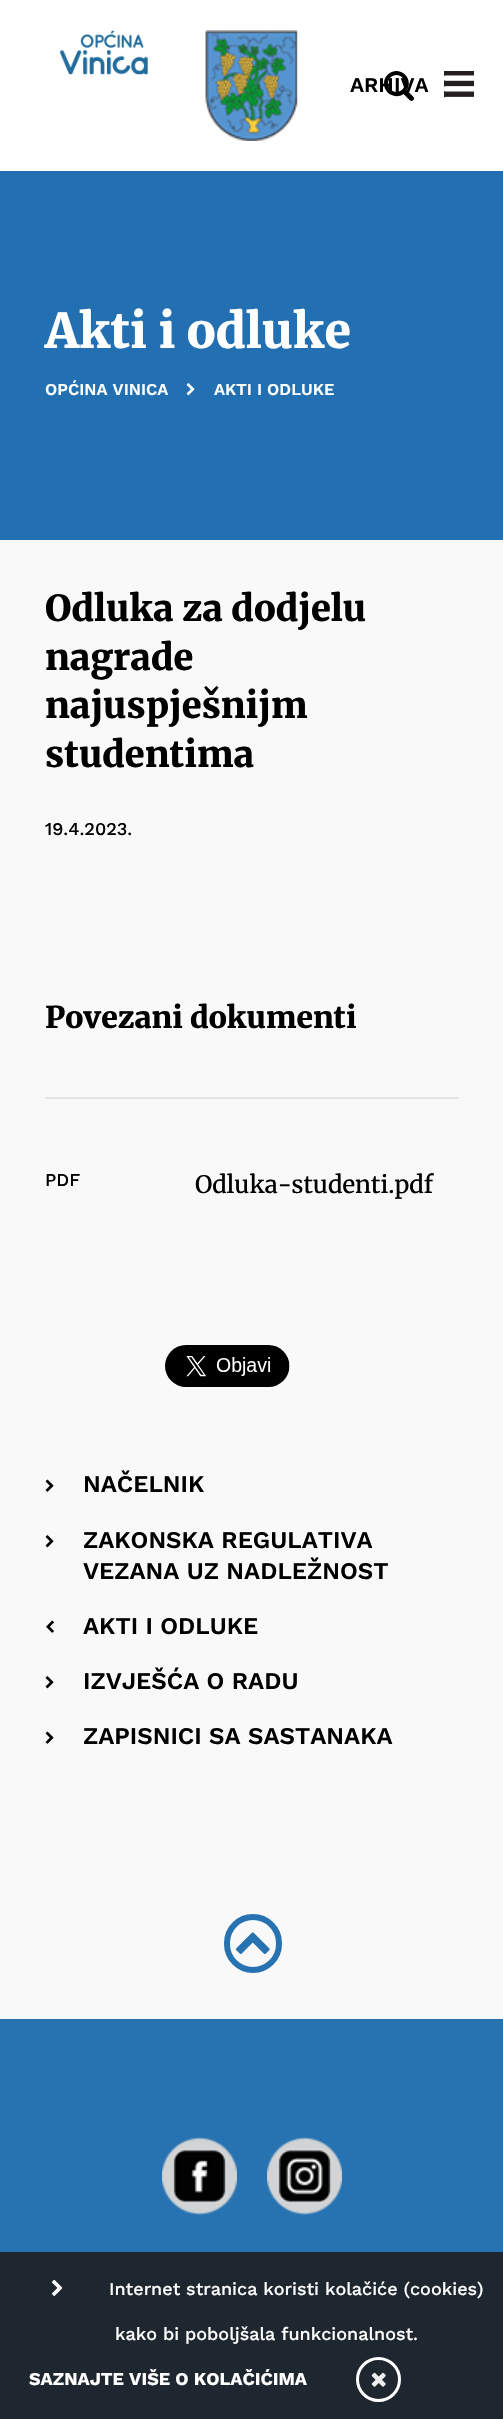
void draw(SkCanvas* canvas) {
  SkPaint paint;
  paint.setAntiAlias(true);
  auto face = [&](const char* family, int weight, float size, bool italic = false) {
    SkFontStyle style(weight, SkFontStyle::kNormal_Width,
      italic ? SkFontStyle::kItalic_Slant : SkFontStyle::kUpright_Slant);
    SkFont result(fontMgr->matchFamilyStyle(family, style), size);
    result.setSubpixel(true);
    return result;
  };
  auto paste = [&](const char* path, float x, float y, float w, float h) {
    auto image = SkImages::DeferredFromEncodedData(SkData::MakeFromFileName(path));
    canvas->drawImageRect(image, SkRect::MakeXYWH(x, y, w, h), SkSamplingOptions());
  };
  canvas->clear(0xfff9f9f9);
  paint.setColor(0xffffffff);
  canvas->drawRect(SkRect::MakeXYWH(0, 0, 503, 171), paint);
  paste("img/1.png", 60, 30, 88, 45);
  paste("img/2.png", 205, 30, 93, 111);
  paint.setColor(0xff231f20);
  canvas->drawRect(SkRect::MakeXYWH(444, 71, 30, 27), paint);
  paste("img/4.png", 444, 75, 30, 26);
  paint.setColor(0xff2270b1);
  canvas->drawRect(SkRect::MakeXYWH(0, 171, 503, 369), paint);
  paste("img/5.png", 186, 383, 9, 13);
  paint.setColor(0xffe1e3e4);
  canvas->drawRect(SkRect::MakeXYWH(45, 1097, 414, 2), paint);
  paste("img/6.png", 165, 1345, 125, 42);
  paste("img/7.png", 45, 1479, 9, 13);
  paste("img/8.png", 45, 1535, 9, 13);
  paste("img/9.png", 46, 1620, 8, 13);
  paste("img/8.png", 45, 1676, 9, 13);
  paste("img/7.png", 45, 1731, 9, 13);
  paint.setColor(0xff2773b2);
  canvas->drawRect(SkRect::MakeXYWH(0, 2019, 503, 233), paint);
  paint.setColor(0xff1e272f);
  canvas->drawRect(SkRect::MakeXYWH(0, 2252, 503, 167), paint);
  paint.setStroke(true);
  paint.setStrokeWidth(6);
  paint.setColor(0xff2773b2);
  canvas->drawRoundRect(SkRect::MakeXYWH(227, 1917, 52, 53), 26, 26, paint);
  paste("img/10.png", 235, 1932, 35, 22);
  paste("img/11.png", 162, 2137, 75, 78);
  paste("img/12.png", 267, 2137, 75, 78);
  paste("img/13.png", 51, 2279, 12, 17);
  paint.setStrokeWidth(3);
  paint.setColor(0xffffffff);
  canvas->drawCircle(378.5f, 2379.5f, 21, paint);
  paste("img/14.png", 371, 2372, 15, 15);
  auto f0 = face("Work Sans", 600, 21);
  paint.setStroke(false);
  paint.setColor(0xff000000);
  canvas->drawString("ARHIVA", 350, 92, f0, paint);
  paste("img/3.png", 384, 71, 30, 30);
  auto f1 = face("Merriweather", 900, 48);
  paint.setColor(0xffffffff);
  canvas->drawString("Akti i odluke", 45, 348, f1, paint);
  auto f2 = face("Work Sans", 600, 16.5f);
  canvas->drawString("OPĆINA VINICA", 45, 395, f2, paint);
  canvas->drawString("AKTI I ODLUKE", 214, 395, f2, paint);
  auto f3 = face("Merriweather", 900, 36);
  paint.setColor(0xff000000);
  {
    const struct { const char* s; float x, y; } items[] = {
      {"Odluka za dodjelu", 45, 621},
      {"nagrade", 45, 670},
      {"najuspješnijm", 45, 718},
      {"studentima", 45, 767},
    };
    for (auto [s, x, y] : items) {
      canvas->drawString(s, x, y, f3, paint);
    }
  }
  auto f4 = face("Work Sans", 500, 18);
  canvas->drawString("19.4.2023.", 45, 835, f4, paint);
  auto f5 = face("Merriweather", 900, 30);
  canvas->drawString("Povezani dokumenti", 45, 1028, f5, paint);
  canvas->drawString("PDF", 45, 1186, f4, paint);
  auto f6 = face("Merriweather", 500, 24);
  canvas->drawString("Odluka-studenti.pdf", 195, 1193, f6, paint);
  auto f7 = face("Work Sans", 600, 24);
  {
    const struct { const char* s; float x, y; } items[] = {
      {"NAČELNIK", 83, 1492},
      {"ZAKONSKA REGULATIVA", 83, 1548},
      {"VEZANA UZ NADLEŽNOST", 83, 1579},
      {"AKTI I ODLUKE", 83, 1634},
      {"IZVJEŠĆA O RADU", 83, 1689},
      {"ZAPISNICI SA SASTANAKA", 83, 1744},
    };
    for (auto [s, x, y] : items) {
      canvas->drawString(s, x, y, f7, paint);
    }
  }
  paint.setColor(0xffffffff);
  canvas->drawString("Internet stranica koristi kolačiće (cookies)", 109, 2295, f4, paint);
  canvas->drawString("kako bi poboljšala funkcionalnost.", 115, 2340, f4, paint);
  auto f8 = face("Work Sans", 700, 18);
  canvas->drawString("SAZNAJTE VIŠE O KOLAČIĆIMA", 29, 2385, f8, paint);
}
